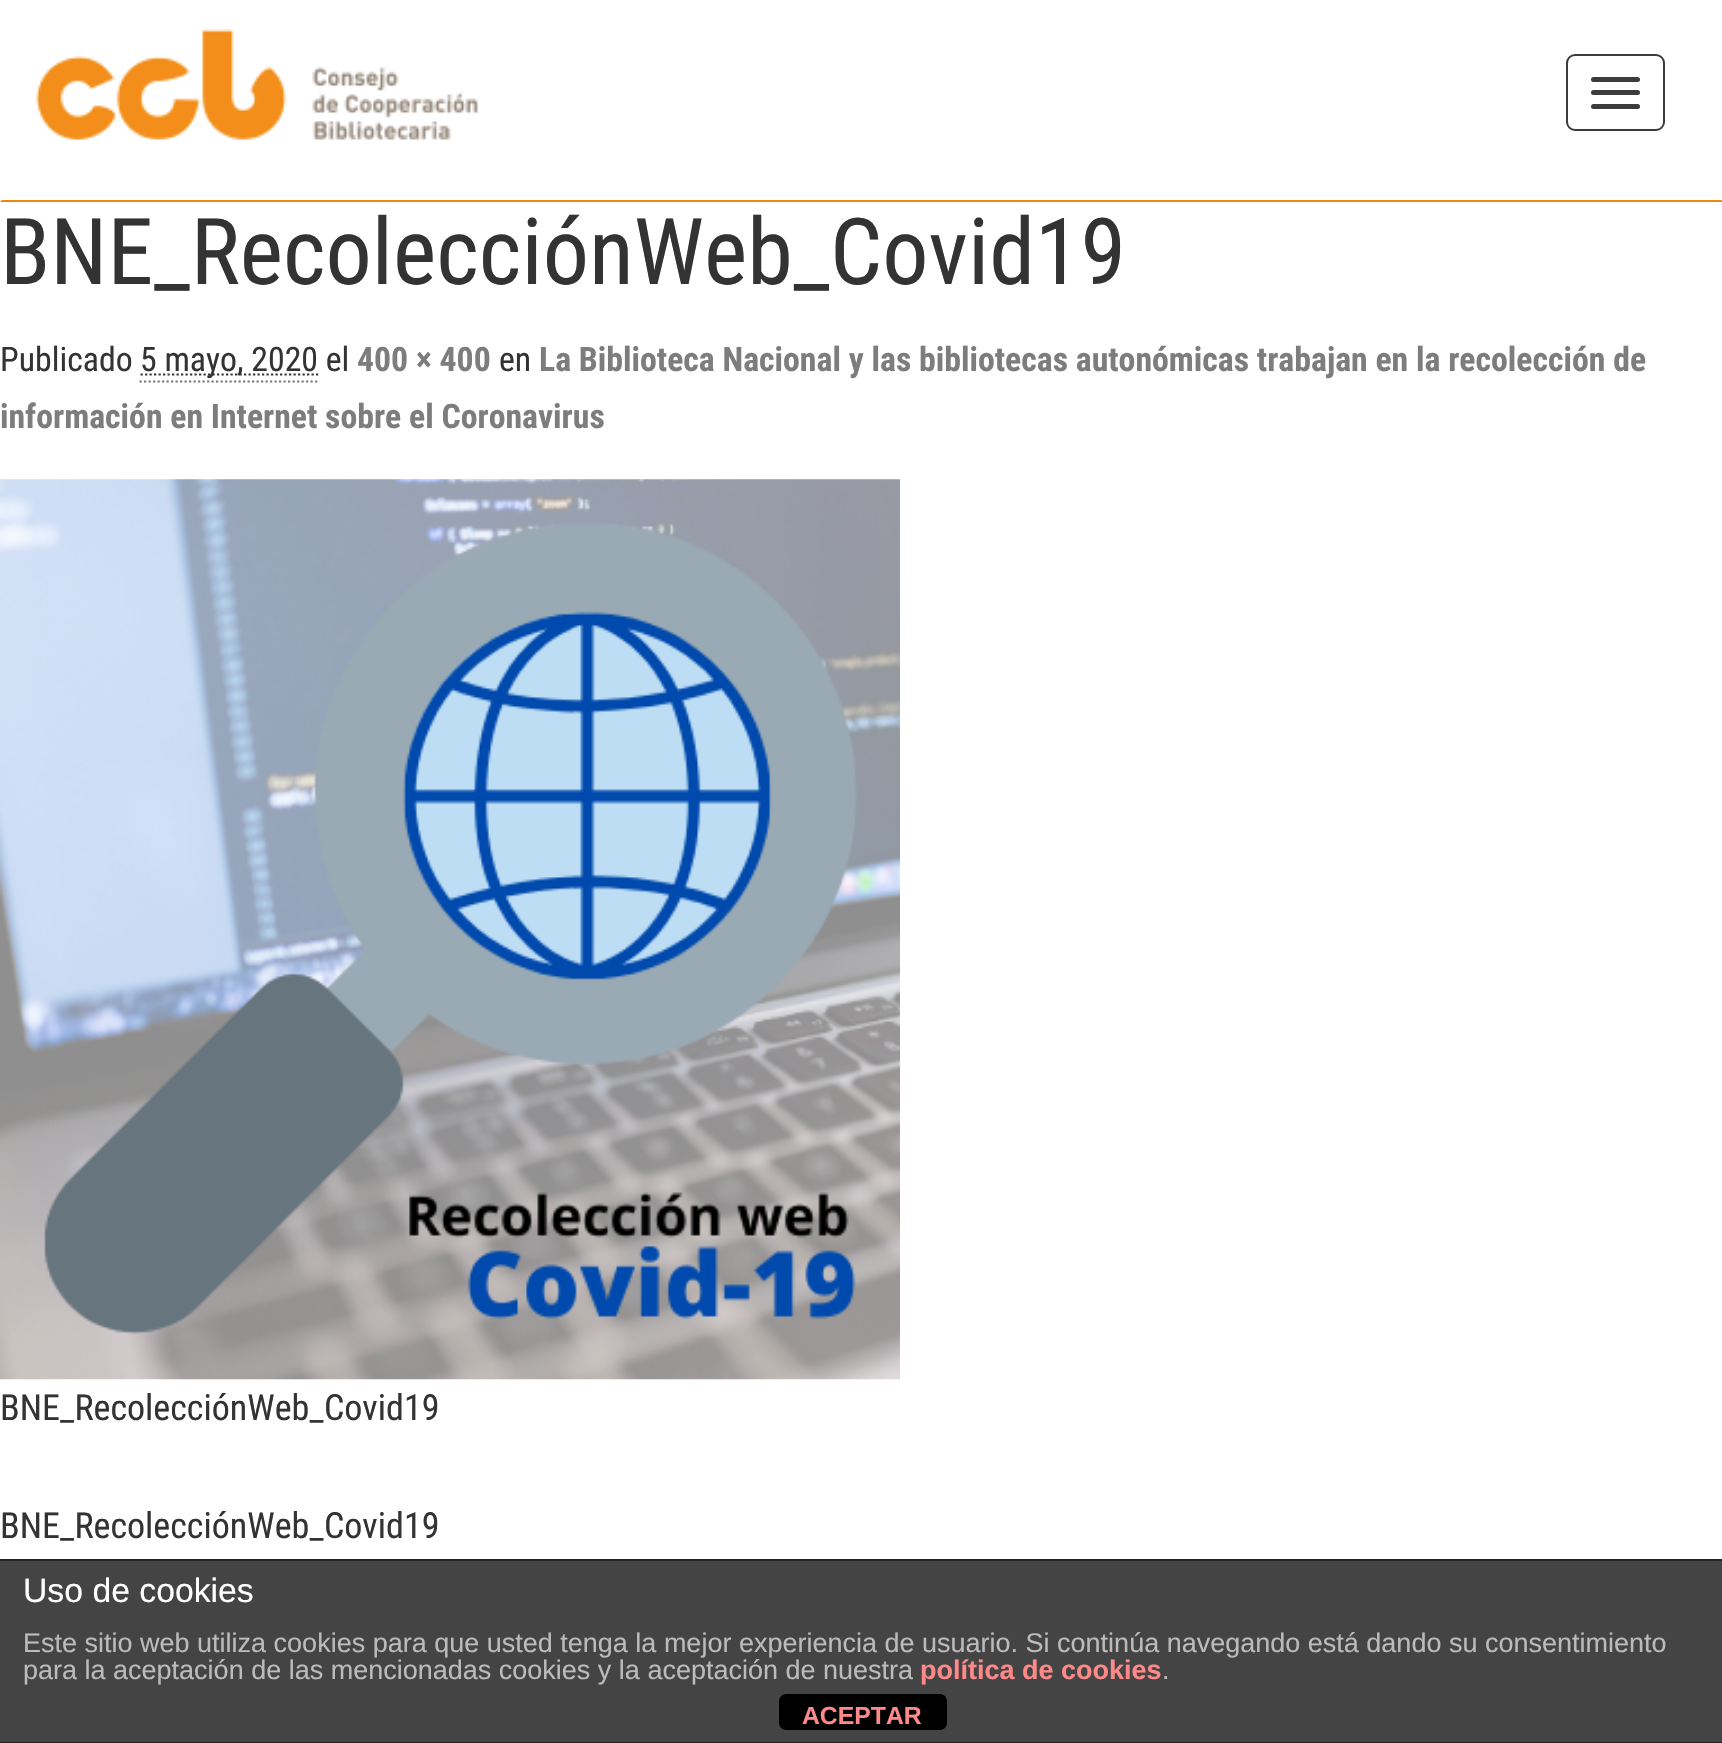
void draw(SkCanvas* canvas) {
  SkPaint paint;
  paint.setAntiAlias(true);
  auto face = [&](const char* family, int weight, float size, bool italic = false) {
    SkFontStyle style(weight, SkFontStyle::kNormal_Width,
      italic ? SkFontStyle::kItalic_Slant : SkFontStyle::kUpright_Slant);
    SkFont result(fontMgr->matchFamilyStyle(family, style), size);
    result.setSubpixel(true);
    return result;
  };
  auto paste = [&](const char* path, float x, float y, float w, float h) {
    auto image = SkImages::DeferredFromEncodedData(SkData::MakeFromFileName(path));
    canvas->drawImageRect(image, SkRect::MakeXYWH(x, y, w, h), SkSamplingOptions());
  };
  auto shape = [&](const char* data, bool evenOdd = false) {
    SkPath result = *SkParsePath::FromSVGString(data);
    if (evenOdd) result.setFillType(SkPathFillType::kEvenOdd);
    return result;
  };
  canvas->clear(0xffffffff);
  paint.setColor(0xffee870c);
  canvas->drawPath(shape("M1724 202H0L2 200H1721Z"), paint);
  paste("img/1.png", 36, 29, 443, 111);
  paint.setStroke(true);
  paint.setStrokeWidth(2);
  paint.setColor(0xff3c3c3c);
  canvas->drawRoundRect(SkRect::MakeXYWH(1567, 55, 97, 75), 8, 8, paint);
  paint.setStroke(false);
  canvas->drawRoundRect(SkRect::MakeXYWH(1591, 77, 49, 5), 2.5f, 2.5f, paint);
  canvas->drawRoundRect(SkRect::MakeXYWH(1591, 90, 49, 5), 2.5f, 2.5f, paint);
  canvas->drawRoundRect(SkRect::MakeXYWH(1591, 104, 49, 5), 2.5f, 2.5f, paint);
  paint.setStroke(true);
  paint.setStrokeWidth(2.2f);
  paint.setColor(0xff777777);
  paint.setPathEffect(SkDashPathEffect::Make({{2.25f, 2.25f}}, 0));
  canvas->drawPath(shape("M139.5 381.5H319.5"), paint);
  paint.setPathEffect(nullptr);
  paint.setColor(0xff333333);
  paint.setPathEffect(SkDashPathEffect::Make({{2.25f, 2.25f}}, 0));
  canvas->drawPath(shape("M140.5 374.5H318.5"), paint);
  paint.setPathEffect(nullptr);
  paste("img/2.png", 0, 479, 900, 901);
  paint.setStroke(false);
  {
    const struct { float x, y, w, h; SkColor color; } items[] = {
      {0, 1561, 1722, 181, 0xff444444},
      {0, 1559, 1722, 2, 0xff222222},
      {0, 1742, 1722, 1, 0xff222222},
    };
    for (auto [x, y, w, h, color] : items) {
      paint.setColor(color);
      canvas->drawRect(SkRect::MakeXYWH(x, y, w, h), paint);
    }
  }
  paint.setColor(0xff000000);
  canvas->drawRoundRect(SkRect::MakeXYWH(779, 1694, 168, 36), 7, 7, paint);
  auto f0 = face("Roboto Condensed", 400, 92.25f);
  paint.setColor(0xff333333);
  canvas->drawString("BNE_RecolecciónWeb_Covid19", 0, 284, f0, paint);
  auto f1 = face("Roboto Condensed", 400, 33.75f);
  canvas->drawString("Publicado", 0, 371, f1, paint);
  canvas->drawString("5 mayo, 2020 el", 140, 371, f1, paint);
  auto f2 = face("Roboto Condensed", 700, 33.75f);
  paint.setColor(0xff7d7d7d);
  canvas->drawString("400 × 400", 357, 371, f2, paint);
  paint.setColor(0xff333333);
  canvas->drawString("en", 499, 371, f1, paint);
  paint.setColor(0xff7d7d7d);
  canvas->drawString("La Biblioteca Nacional y las bibliotecas autonómicas trabajan en la recolección de", 539, 371, f2, paint);
  canvas->drawString("información en Internet sobre el Coronavirus", 0, 428, f2, paint);
  auto f3 = face("Roboto Condensed", 400, 36);
  paint.setColor(0xff333333);
  canvas->drawString("BNE_RecolecciónWeb_Covid19", 0, 1420, f3, paint);
  canvas->drawString("BNE_RecolecciónWeb_Covid19", 0, 1538, f3, paint);
  auto f4 = face("Liberation Sans", 400, 33.75f);
  paint.setColor(0xffffffff);
  canvas->drawString("Uso de cookies", 23, 1602, f4, paint);
  auto f5 = face("Liberation Sans", 400, 27);
  paint.setColor(0xffbbbbbb);
  canvas->drawString("Este sitio web utiliza cookies para que usted tenga la mejor experiencia de usuario. Si continúa navegando está dando su consentimiento", 23, 1652, f5, paint);
  canvas->drawString("para la aceptación de las mencionadas cookies y la aceptación de nuestra", 23, 1679, f5, paint);
  auto f6 = face("Liberation Sans", 700, 27);
  paint.setColor(0xffff8888);
  canvas->drawString("política de cookies", 920, 1679, f6, paint);
  paint.setColor(0xffbbbbbb);
  canvas->drawString(".", 1162, 1679, f5, paint);
  auto f7 = face("Liberation Sans", 700, 24.75f);
  paint.setColor(0xffff8888);
  canvas->drawString("ACEPTAR", 802, 1724, f7, paint);
}
